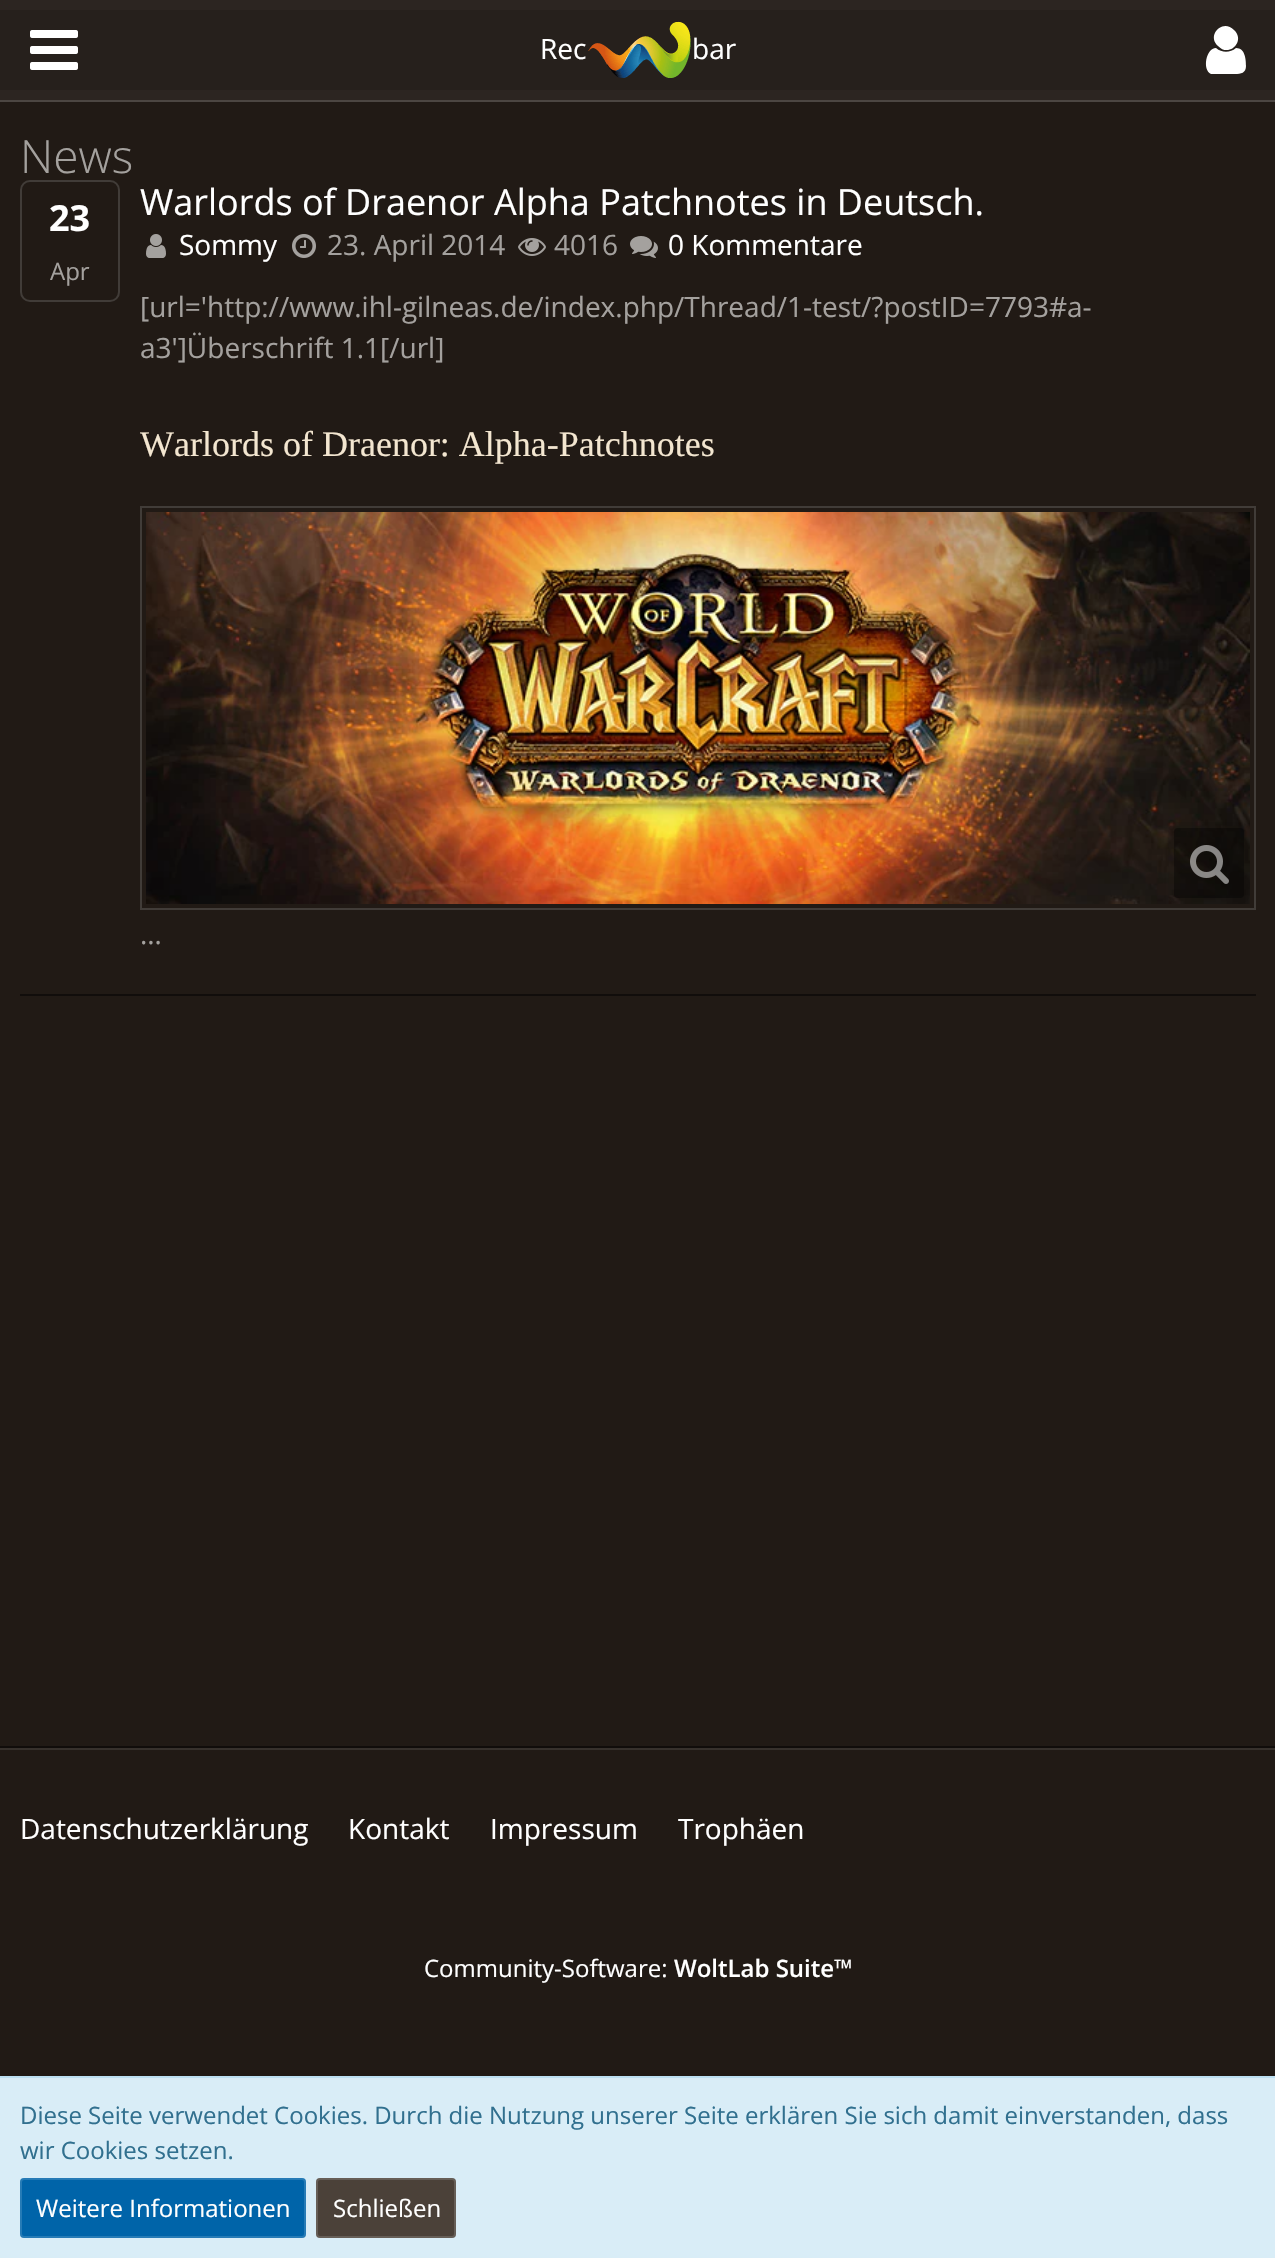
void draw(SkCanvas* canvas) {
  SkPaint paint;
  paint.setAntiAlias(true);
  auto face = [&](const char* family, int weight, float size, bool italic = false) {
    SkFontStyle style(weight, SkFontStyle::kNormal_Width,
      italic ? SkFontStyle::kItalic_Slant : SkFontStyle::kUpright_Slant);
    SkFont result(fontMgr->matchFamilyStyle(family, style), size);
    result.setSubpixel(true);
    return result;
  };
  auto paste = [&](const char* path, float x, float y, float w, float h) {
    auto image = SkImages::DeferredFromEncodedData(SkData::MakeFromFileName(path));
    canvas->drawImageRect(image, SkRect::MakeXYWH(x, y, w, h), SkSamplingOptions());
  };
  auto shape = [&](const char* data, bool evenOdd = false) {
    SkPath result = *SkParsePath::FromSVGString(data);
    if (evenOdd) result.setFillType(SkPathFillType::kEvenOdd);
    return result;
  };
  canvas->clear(0xff211a15);
  paint.setColor(0xff2c2521);
  canvas->drawRect(SkRect::MakeXYWH(0, 0, 1275, 100), paint);
  paint.setColor(0xff26201c);
  canvas->drawRect(SkRect::MakeXYWH(0, 10, 1275, 80), paint);
  paste("img/1.png", 588, 21, 103, 57);
  paint.setColor(0xff4c4642);
  canvas->drawRect(SkRect::MakeXYWH(0, 100, 1275, 2), paint);
  paste("img/2.png", 30, 30, 48, 40);
  paint.setColor(0xffffffff);
  canvas->drawPath(shape("M1246 66C1246 73 1241 74 1235 74H1211C1202 70 1206 48 1216 48C1222 53 1230 53 1236 48C1245 48 1246 59 1246 66ZM1234 30C1246 41 1229 58 1218 46C1206 35 1223 18 1234 30Z"), paint);
  {
    const struct { float x, y, w, h; SkColor color; } items[] = {
      {0, 1746, 1275, 2, 0xff110d0b},
      {0, 1748, 1275, 2, 0xff37312c},
      {20, 994, 1236, 2, 0xff110d0b},
    };
    for (auto [x, y, w, h, color] : items) {
      paint.setColor(color);
      canvas->drawRect(SkRect::MakeXYWH(x, y, w, h), paint);
    }
  }
  paint.setStroke(true);
  paint.setStrokeWidth(2);
  paint.setColor(0xff413c38);
  canvas->drawRoundRect(SkRect::MakeXYWH(21, 181, 98, 120), 9, 9, paint);
  paste("img/3.png", 146, 234, 20, 24);
  paste("img/4.png", 292, 234, 24, 24);
  paste("img/5.png", 518, 238, 28, 18);
  paste("img/6.png", 630, 236, 28, 22);
  canvas->drawRect(SkRect::MakeXYWH(141, 507, 1114, 402), paint);
  paste("img/7.png", 146, 512, 1104, 392);
  paint.setStrokeWidth(6);
  paint.setColor(0x12000000);
  canvas->drawRoundRect(SkRect::MakeXYWH(1171, 825, 76, 76), 7, 7, paint);
  paint.setStroke(false);
  paint.setColor(0x66000000);
  canvas->drawRoundRect(SkRect::MakeXYWH(1174, 828, 70, 70), 4, 4, paint);
  paste("img/8.png", 1190, 845, 39, 39);
  paint.setColor(0xffd9edf7);
  canvas->drawRect(SkRect::MakeXYWH(0, 2078, 1275, 180), paint);
  paint.setColor(0xffbcdff1);
  canvas->drawRect(SkRect::MakeXYWH(0, 2076, 1275, 2), paint);
  paint.setColor(0xff0064a9);
  canvas->drawRoundRect(SkRect::MakeXYWH(20, 2178, 286, 60), 4, 4, paint);
  paint.setStroke(true);
  paint.setStrokeWidth(2);
  paint.setColor(0x26ffffff);
  canvas->drawRoundRect(SkRect::MakeXYWH(21, 2179, 284, 58), 3, 3, paint);
  paint.setStroke(false);
  paint.setColor(0xff4b4139);
  canvas->drawRoundRect(SkRect::MakeXYWH(316, 2178, 140, 60), 4, 4, paint);
  paint.setStroke(true);
  paint.setColor(0x26ffffff);
  canvas->drawRoundRect(SkRect::MakeXYWH(317, 2179, 138, 58), 3, 3, paint);
  auto f0 = face("Open Sans", 400, 28);
  paint.setStroke(false);
  paint.setColor(0xffffffff);
  canvas->drawString("Rec", 540, 59, f0, paint);
  canvas->drawString("bar", 692, 59, f0, paint);
  auto f1 = face("Open Sans", 300, 46);
  paint.setColor(0xffa4a19e);
  canvas->drawString("News", 20, 173, f1, paint);
  auto f2 = face("Open Sans", 700, 36);
  paint.setColor(0xffffffff);
  canvas->drawString("23", 49, 231, f2, paint);
  auto f3 = face("Open Sans", 400, 24);
  paint.setColor(0xffa4a19e);
  canvas->drawString("Apr", 50, 280, f3, paint);
  auto f4 = face("Open Sans", 400, 36);
  paint.setColor(0xffffffff);
  canvas->drawString("Warlords of Draenor Alpha Patchnotes in Deutsch.", 140, 215, f4, paint);
  canvas->drawString("Sommy", 179, 255, f0, paint);
  paint.setColor(0xffa4a19e);
  canvas->drawString("23. April 2014", 327, 255, f0, paint);
  canvas->drawString("4016", 554, 255, f0, paint);
  paint.setColor(0xffffffff);
  canvas->drawString("0 Kommentare", 668, 255, f0, paint);
  paint.setColor(0xffa4a19e);
  canvas->drawString("[url='http://www.ihl-gilneas.de/index.php/Thread/1-test/?postID=7793#a-", 140, 317, f0, paint);
  canvas->drawString("a3']Überschrift 1.1[/url]", 140, 358, f0, paint);
  auto f5 = face("Liberation Serif", 400, 36);
  paint.setColor(0xfff3e6d0);
  canvas->drawString("Warlords of Draenor: Alpha-Patchnotes", 140, 456, f5, paint);
  paint.setColor(0xffa4a19e);
  canvas->drawString("…", 140, 944, f0, paint);
  paint.setColor(0xffffffff);
  {
    const struct { const char* s; float x, y; } items[] = {
      {"Datenschutzerklärung", 20, 1839},
      {"Kontakt", 348, 1839},
      {"Impressum", 490, 1839},
      {"Trophäen", 678, 1839},
    };
    for (auto [s, x, y] : items) {
      canvas->drawString(s, x, y, f0, paint);
    }
  }
  canvas->drawString("Community-Software:", 424, 1977, f3, paint);
  auto f6 = face("Open Sans", 600, 24);
  canvas->drawString("WoltLab Suite™", 674, 1977, f6, paint);
  paint.setColor(0xff31708f);
  canvas->drawString("Diese Seite verwendet Cookies. Durch die Nutzung unserer Seite erklären Sie sich damit einverstanden, dass", 20, 2124, f3, paint);
  canvas->drawString("wir Cookies setzen.", 20, 2159, f3, paint);
  paint.setColor(0xffffffff);
  canvas->drawString("Weitere Informationen", 36, 2217, f3, paint);
  canvas->drawString("Schließen", 333, 2217, f3, paint);
}
